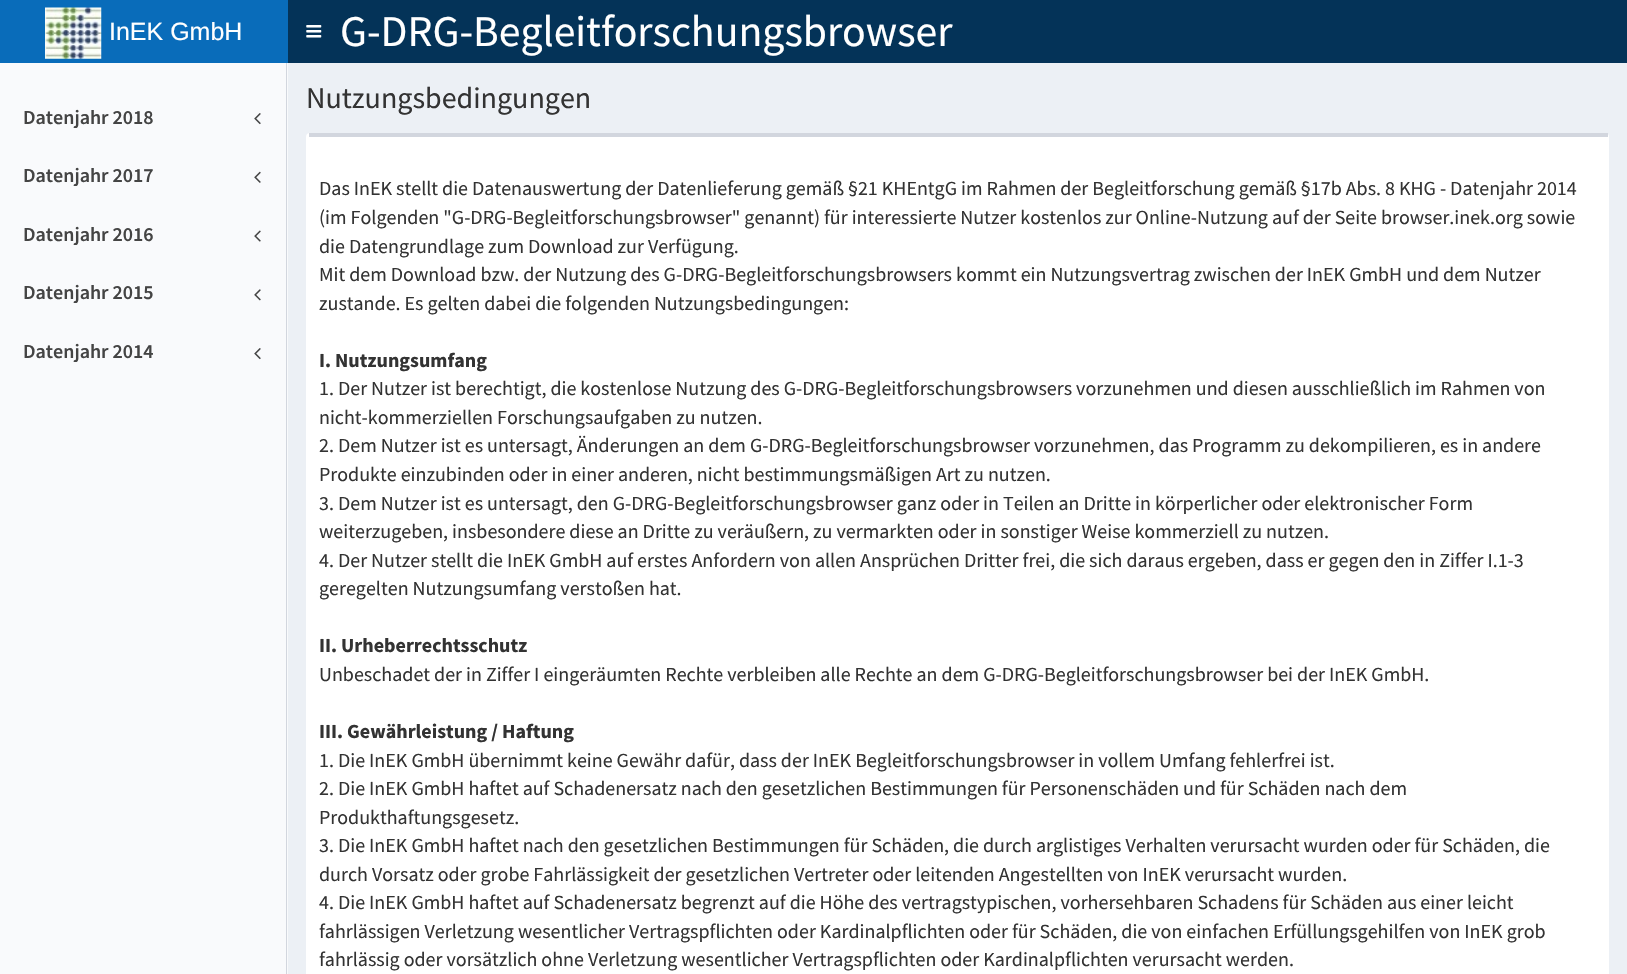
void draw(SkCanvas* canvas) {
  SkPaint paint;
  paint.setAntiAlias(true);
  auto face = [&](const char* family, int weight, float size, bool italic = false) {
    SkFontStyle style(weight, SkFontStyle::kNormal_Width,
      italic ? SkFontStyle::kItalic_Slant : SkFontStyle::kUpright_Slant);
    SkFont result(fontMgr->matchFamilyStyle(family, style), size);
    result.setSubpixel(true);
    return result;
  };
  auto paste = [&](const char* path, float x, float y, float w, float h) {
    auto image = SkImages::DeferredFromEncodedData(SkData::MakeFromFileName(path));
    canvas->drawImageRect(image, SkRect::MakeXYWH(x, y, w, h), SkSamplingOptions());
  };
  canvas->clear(0xfff9fafc);
  paint.setColor(0xff096cba);
  canvas->drawRect(SkRect::MakeXYWH(0, 0, 288, 63), paint);
  paste("img/1.png", 45, 7, 57, 52);
  paint.setColor(0xff043358);
  canvas->drawRect(SkRect::MakeXYWH(288, 0, 1339, 63), paint);
  paste("img/2.png", 306, 25, 16, 13);
  paint.setColor(0xffd2d6de);
  canvas->drawRect(SkRect::MakeXYWH(286, 63, 1, 911), paint);
  paste("img/3.png", 254, 113, 7, 12);
  paste("img/4.png", 254, 171, 7, 12);
  paste("img/5.png", 254, 230, 7, 12);
  paste("img/6.png", 254, 289, 7, 12);
  paste("img/3.png", 254, 348, 7, 12);
  paint.setColor(0xffecf0f5);
  canvas->drawRect(SkRect::MakeXYWH(288, 63, 1339, 911), paint);
  paint.setColor(0xffffffff);
  canvas->drawRoundRect(SkRect::MakeXYWH(306, 133, 1303, 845), 4, 4, paint);
  paint.setColor(0xffd2d6de);
  canvas->drawRect(SkRect::MakeXYWH(309, 133, 1299, 4), paint);
  auto f0 = face("Liberation Sans", 400, 25);
  paint.setColor(0xffffffff);
  canvas->drawString("InEK GmbH", 109, 40, f0, paint);
  auto f1 = face("Source Sans Pro", 400, 43.75f);
  canvas->drawString("G-DRG-Begleitforschungsbrowser", 340, 46, f1, paint);
  auto f2 = face("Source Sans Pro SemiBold", 600, 20);
  paint.setColor(0xff444444);
  {
    const struct { const char* s; float x, y; } items[] = {
      {"Datenjahr 2018", 23, 124},
      {"Datenjahr 2017", 23, 182},
      {"Datenjahr 2016", 23, 241},
      {"Datenjahr 2015", 23, 299},
      {"Datenjahr 2014", 23, 358},
    };
    for (auto [s, x, y] : items) {
      canvas->drawString(s, x, y, f2, paint);
    }
  }
  auto f3 = face("Source Sans Pro", 400, 30);
  paint.setColor(0xff333333);
  canvas->drawString("Nutzungsbedingungen", 306, 108, f3, paint);
  auto f4 = face("Source Sans Pro", 400, 20);
  {
    const struct { const char* s; float x, y; } items[] = {
      {"Das InEK stellt die Datenauswertung der Datenlieferung gemäß §21 KHEntgG im Rahmen der Begleitforschung gemäß §17b Abs. 8 KHG - Datenjahr 2014", 319, 195},
      {"(im Folgenden \"G-DRG-Begleitforschungsbrowser\" genannt) für interessierte Nutzer kostenlos zur Online-Nutzung auf der Seite browser.inek.org sowie", 319, 224},
      {"die Datengrundlage zum Download zur Verfügung.", 319, 253},
      {"Mit dem Download bzw. der Nutzung des G-DRG-Begleitforschungsbrowsers kommt ein Nutzungsvertrag zwischen der InEK GmbH und dem Nutzer", 319, 281},
      {"zustande. Es gelten dabei die folgenden Nutzungsbedingungen:", 319, 310},
    };
    for (auto [s, x, y] : items) {
      canvas->drawString(s, x, y, f4, paint);
    }
  }
  auto f5 = face("Source Sans Pro", 700, 20);
  canvas->drawString("I. Nutzungsumfang", 319, 367, f5, paint);
  {
    const struct { const char* s; float x, y; } items[] = {
      {"1. Der Nutzer ist berechtigt, die kostenlose Nutzung des G-DRG-Begleitforschungsbrowsers vorzunehmen und diesen ausschließlich im Rahmen von", 319, 395},
      {"nicht-kommerziellen Forschungsaufgaben zu nutzen.", 319, 424},
      {"2. Dem Nutzer ist es untersagt, Änderungen an dem G-DRG-Begleitforschungsbrowser vorzunehmen, das Programm zu dekompilieren, es in andere", 319, 452},
      {"Produkte einzubinden oder in einer anderen, nicht bestimmungsmäßigen Art zu nutzen.", 319, 481},
      {"3. Dem Nutzer ist es untersagt, den G-DRG-Begleitforschungsbrowser ganz oder in Teilen an Dritte in körperlicher oder elektronischer Form", 319, 510},
      {"weiterzugeben, insbesondere diese an Dritte zu veräußern, zu vermarkten oder in sonstiger Weise kommerziell zu nutzen.", 319, 538},
      {"4. Der Nutzer stellt die InEK GmbH auf erstes Anfordern von allen Ansprüchen Dritter frei, die sich daraus ergeben, dass er gegen den in Ziffer I.1-3", 319, 567},
      {"geregelten Nutzungsumfang verstoßen hat.", 319, 595},
    };
    for (auto [s, x, y] : items) {
      canvas->drawString(s, x, y, f4, paint);
    }
  }
  canvas->drawString("II. Urheberrechtsschutz", 319, 652, f5, paint);
  canvas->drawString("Unbeschadet der in Ziffer I eingeräumten Rechte verbleiben alle Rechte an dem G-DRG-Begleitforschungsbrowser bei der InEK GmbH.", 319, 681, f4, paint);
  canvas->drawString("III. Gewährleistung / Haftung", 319, 738, f5, paint);
  {
    const struct { const char* s; float x, y; } items[] = {
      {"1. Die InEK GmbH übernimmt keine Gewähr dafür, dass der InEK Begleitforschungsbrowser in vollem Umfang fehlerfrei ist.", 319, 767},
      {"2. Die InEK GmbH haftet auf Schadenersatz nach den gesetzlichen Bestimmungen für Personenschäden und für Schäden nach dem", 319, 795},
      {"Produkthaftungsgesetz.", 319, 824},
      {"3. Die InEK GmbH haftet nach den gesetzlichen Bestimmungen für Schäden, die durch arglistiges Verhalten verursacht wurden oder für Schäden, die", 319, 852},
      {"durch Vorsatz oder grobe Fahrlässigkeit der gesetzlichen Vertreter oder leitenden Angestellten von InEK verursacht wurden.", 319, 881},
      {"4. Die InEK GmbH haftet auf Schadenersatz begrenzt auf die Höhe des vertragstypischen, vorhersehbaren Schadens für Schäden aus einer leicht", 319, 909},
      {"fahrlässigen Verletzung wesentlicher Vertragspflichten oder Kardinalpflichten oder für Schäden, die von einfachen Erfüllungsgehilfen von InEK grob", 319, 938},
      {"fahrlässig oder vorsätzlich ohne Verletzung wesentlicher Vertragspflichten oder Kardinalpflichten verursacht werden.", 319, 966},
    };
    for (auto [s, x, y] : items) {
      canvas->drawString(s, x, y, f4, paint);
    }
  }
}
